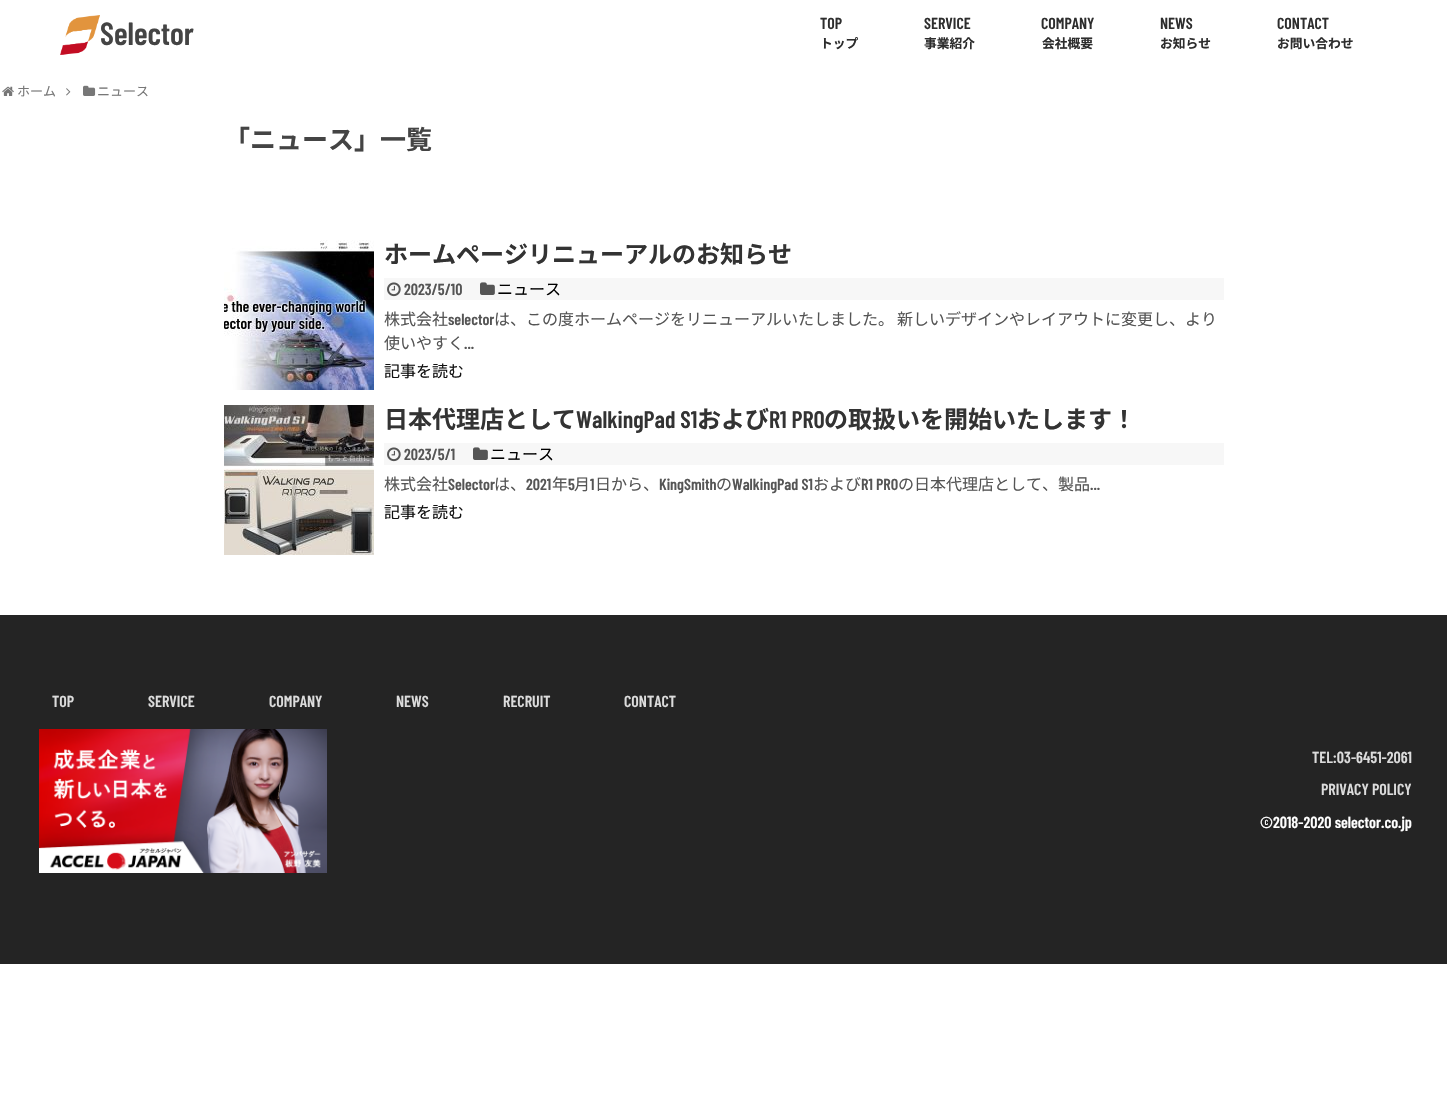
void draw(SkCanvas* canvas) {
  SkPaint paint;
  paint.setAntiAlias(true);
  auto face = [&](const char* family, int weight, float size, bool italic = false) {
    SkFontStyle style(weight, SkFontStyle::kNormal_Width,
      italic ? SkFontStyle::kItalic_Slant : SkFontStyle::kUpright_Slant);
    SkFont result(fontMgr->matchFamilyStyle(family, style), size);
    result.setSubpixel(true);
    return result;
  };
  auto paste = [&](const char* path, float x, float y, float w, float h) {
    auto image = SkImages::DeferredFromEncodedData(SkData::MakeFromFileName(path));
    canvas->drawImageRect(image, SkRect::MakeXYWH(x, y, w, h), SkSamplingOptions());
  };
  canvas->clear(0xffffffff);
  paste("img/1.png", 60, 15, 40, 40);
  paste("img/2.png", 2, 86, 12, 10);
  paste("img/3.png", 66, 88, 5, 8);
  paste("img/4.png", 83, 85, 13, 11);
  paste("img/5.png", 224, 240, 150, 150);
  paint.setColor(0xfff7f7f7);
  canvas->drawRect(SkRect::MakeXYWH(384, 278, 840, 22), paint);
  paste("img/6.png", 387, 282, 14, 15);
  paste("img/7.png", 480, 282, 15, 13);
  paste("img/8.png", 224, 405, 150, 150);
  canvas->drawRect(SkRect::MakeXYWH(384, 443, 840, 22), paint);
  paste("img/6.png", 387, 447, 14, 15);
  paste("img/7.png", 473, 447, 15, 13);
  paint.setColor(0xff242424);
  canvas->drawRect(SkRect::MakeXYWH(0, 615, 1447, 349), paint);
  paste("img/9.png", 39, 729, 288, 144);
  auto f0 = face("Barlow Condensed", 600, 32);
  paint.setColor(0xff444444);
  canvas->drawString("Selector", 100, 45, f0, paint);
  auto f1 = face("Barlow Condensed", 600, 16);
  paint.setColor(0xff2d2d2d);
  canvas->drawString("TOP", 820, 29, f1, paint);
  auto f2 = face("Noto Sans JP", 700, 12.75f);
  canvas->drawString("トップ", 820, 48, f2, paint);
  canvas->drawString("SERVICE", 924, 29, f1, paint);
  canvas->drawString("事業紹介", 924, 48, f2, paint);
  canvas->drawString("COMPANY", 1041, 29, f1, paint);
  canvas->drawString("会社概要", 1042, 48, f2, paint);
  canvas->drawString("NEWS", 1160, 29, f1, paint);
  canvas->drawString("お知らせ", 1160, 48, f2, paint);
  canvas->drawString("CONTACT", 1277, 29, f1, paint);
  canvas->drawString("お問い合わせ", 1277, 48, f2, paint);
  auto f3 = face("Noto Sans JP", 400, 13);
  paint.setColor(0xff777777);
  canvas->drawString("ホーム", 17, 96, f3, paint);
  canvas->drawString("ニュース", 97, 96, f3, paint);
  auto f4 = face("Noto Sans JP", 700, 26);
  paint.setColor(0xff444444);
  canvas->drawString("「ニュース」一覧", 224, 149, f4, paint);
  auto f5 = face("Noto Sans JP", 700, 24);
  paint.setColor(0xff333333);
  canvas->drawString("ホームページリニューアルのお知らせ", 384, 263, f5, paint);
  paint.setColor(0xff555555);
  canvas->drawString("2023/5/10", 404, 295, f1, paint);
  auto f6 = face("Noto Sans JP", 400, 16);
  paint.setColor(0xff000000);
  canvas->drawString("ニュース", 497, 295, f6, paint);
  paint.setColor(0xff555555);
  canvas->drawString("株式会社", 384, 325, f6, paint);
  canvas->drawString("selector", 448, 325, f1, paint);
  {
    const struct { const char* s; float x, y; } items[] = {
      {"は、この度ホームページをリニューアルいたしました。", 494, 325},
      {"新しいデザインやレイアウトに変更し、より", 897, 325},
      {"使いやすく", 384, 349},
    };
    for (auto [s, x, y] : items) {
      canvas->drawString(s, x, y, f6, paint);
    }
  }
  canvas->drawString("...", 464, 349, f1, paint);
  paint.setColor(0xff111111);
  canvas->drawString("記事を読む", 384, 377, f6, paint);
  paint.setColor(0xff333333);
  canvas->drawString("日本代理店として", 384, 428, f5, paint);
  auto f7 = face("Barlow Condensed", 600, 24);
  canvas->drawString("WalkingPad S1", 576, 428, f7, paint);
  canvas->drawString("および", 697, 428, f5, paint);
  canvas->drawString("R1 PRO", 769, 428, f7, paint);
  canvas->drawString("の取扱いを開始いたします！", 824, 428, f5, paint);
  paint.setColor(0xff555555);
  canvas->drawString("2023/5/1", 404, 460, f1, paint);
  paint.setColor(0xff000000);
  canvas->drawString("ニュース", 490, 460, f6, paint);
  paint.setColor(0xff555555);
  canvas->drawString("株式会社", 384, 490, f6, paint);
  canvas->drawString("Selector", 448, 490, f1, paint);
  canvas->drawString("は、", 494, 490, f6, paint);
  canvas->drawString("2021", 526, 490, f1, paint);
  canvas->drawString("年", 552, 490, f6, paint);
  canvas->drawString("5", 568, 490, f1, paint);
  canvas->drawString("月", 574, 490, f6, paint);
  canvas->drawString("1", 590, 490, f1, paint);
  canvas->drawString("日から、", 595, 490, f6, paint);
  canvas->drawString("KingSmith", 659, 490, f1, paint);
  canvas->drawString("の", 716, 490, f6, paint);
  canvas->drawString("WalkingPad S1", 732, 490, f1, paint);
  canvas->drawString("および", 813, 490, f6, paint);
  canvas->drawString("R1 PRO", 861, 490, f1, paint);
  canvas->drawString("の日本代理店として、製品", 898, 490, f6, paint);
  canvas->drawString("...", 1090, 490, f1, paint);
  paint.setColor(0xff111111);
  canvas->drawString("記事を読む", 384, 518, f6, paint);
  paint.setColor(0xffdcdcdc);
  {
    const struct { const char* s; float x, y; } items[] = {
      {"TOP", 52, 707},
      {"SERVICE", 148, 707},
      {"COMPANY", 269, 707},
      {"NEWS", 396, 707},
      {"RECRUIT", 503, 707},
      {"CONTACT", 624, 707},
      {"TEL:03-6451-2061", 1312, 763},
      {"PRIVACY POLICY", 1321, 795},
    };
    for (auto [s, x, y] : items) {
      canvas->drawString(s, x, y, f1, paint);
    }
  }
  paint.setColor(0xffffffff);
  canvas->drawString("©2018-2020 selector.co.jp", 1260, 828, f1, paint);
}
